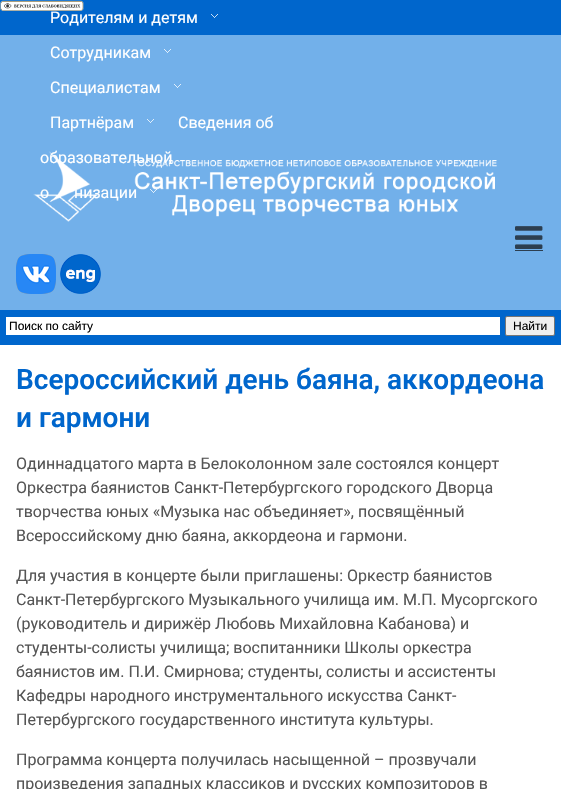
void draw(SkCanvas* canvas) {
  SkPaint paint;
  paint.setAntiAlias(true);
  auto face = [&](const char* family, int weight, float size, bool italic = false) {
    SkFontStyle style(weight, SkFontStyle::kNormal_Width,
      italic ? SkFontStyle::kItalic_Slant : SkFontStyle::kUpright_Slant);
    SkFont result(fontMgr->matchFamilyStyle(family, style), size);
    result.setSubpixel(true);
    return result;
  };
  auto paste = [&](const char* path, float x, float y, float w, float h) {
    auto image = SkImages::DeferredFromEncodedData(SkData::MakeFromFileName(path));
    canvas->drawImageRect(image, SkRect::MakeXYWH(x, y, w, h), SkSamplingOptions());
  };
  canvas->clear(0xffffffff);
  paint.setColor(0xff0066cc);
  canvas->drawRect(SkRect::MakeXYWH(0, 0, 561, 35), paint);
  paste("img/1.png", 0, 0, 84, 11);
  paste("img/2.png", 211, 14, 7, 4);
  paint.setColor(0xff72b0ea);
  canvas->drawRect(SkRect::MakeXYWH(0, 35, 561, 275), paint);
  paste("img/3.png", 164, 49, 7, 4);
  paste("img/3.png", 174, 84, 7, 4);
  paste("img/3.png", 147, 119, 7, 4);
  paste("img/5.png", 33, 151, 464, 71);
  paste("img/4.png", 150, 189, 7, 4);
  paste("img/6.png", 515, 226, 28, 23);
  paint.setColor(0xff2c3e50);
  canvas->drawRect(SkRect::MakeXYWH(515, 250, 28, 1), paint);
  paste("img/7.png", 16, 254, 40, 40);
  paste("img/8.png", 60, 254, 41, 40);
  paint.setColor(0xff0066cc);
  canvas->drawRect(SkRect::MakeXYWH(0, 310, 561, 35), paint);
  paint.setColor(0xffffffff);
  canvas->drawRect(SkRect::MakeXYWH(6, 317, 494, 18), paint);
  paint.setColor(0xffefefef);
  canvas->drawRoundRect(SkRect::MakeXYWH(505.5f, 316.5f, 49, 19), 1.5f, 1.5f, paint);
  paint.setStroke(true);
  paint.setStrokeWidth(1);
  paint.setColor(0xff767676);
  canvas->drawRoundRect(SkRect::MakeXYWH(505.5f, 316.5f, 49, 19), 1.5f, 1.5f, paint);
  auto f0 = face("Roboto", 400, 16);
  paint.setStroke(false);
  paint.setColor(0xffffffff);
  {
    const struct { const char* s; float x, y; } items[] = {
      {"Родителям и детям", 50, 23},
      {"Сотрудникам", 50, 58},
      {"Специалистам", 50, 93},
      {"Партнёрам", 50, 128},
      {"Сведения об", 178, 128},
      {"образовательной", 40, 163},
      {"о", 40, 198},
      {"низации", 74, 198},
    };
    for (auto [s, x, y] : items) {
      canvas->drawString(s, x, y, f0, paint);
    }
  }
  auto f1 = face("Liberation Sans", 400, 12);
  paint.setColor(0xff000000);
  canvas->drawString("Поиск по сайту", 9, 330, f1, paint);
  canvas->drawString("Найти", 513, 330, f1, paint);
  auto f2 = face("Roboto", 600, 28);
  paint.setColor(0xff0066cc);
  canvas->drawString("Всероссийский день баяна, аккордеона", 16, 389, f2, paint);
  canvas->drawString("и гармони", 16, 427, f2, paint);
  paint.setColor(0xff555555);
  {
    const struct { const char* s; float x, y; } items[] = {
      {"Одиннадцатого марта в Белоколонном зале состоялся концерт", 16, 469},
      {"Оркестра баянистов Санкт-Петербургского городского Дворца", 16, 493},
      {"творчества юных «Музыка нас объединяет», посвящённый", 16, 517},
      {"Всероссийскому дню баяна, аккордеона и гармони.", 16, 541},
      {"Для участия в концерте были приглашены: Оркестр баянистов", 16, 581},
      {"Санкт-Петербургского Музыкального училища им. М.П. Мусоргского", 16, 605},
      {"(руководитель и дирижёр Любовь Михайловна Кабанова) и", 16, 629},
      {"студенты-солисты училища; воспитанники Школы оркестра", 16, 653},
      {"баянистов им. П.И. Смирнова; студенты, солисты и ассистенты", 16, 677},
      {"Кафедры народного инструментального искусства Санкт-", 16, 701},
      {"Петербургского государственного института культуры.", 16, 725},
      {"Программа концерта получилась насыщенной – прозвучали", 16, 765},
      {"произведения западных классиков и русских композиторов в", 16, 789},
    };
    for (auto [s, x, y] : items) {
      canvas->drawString(s, x, y, f0, paint);
    }
  }
}
